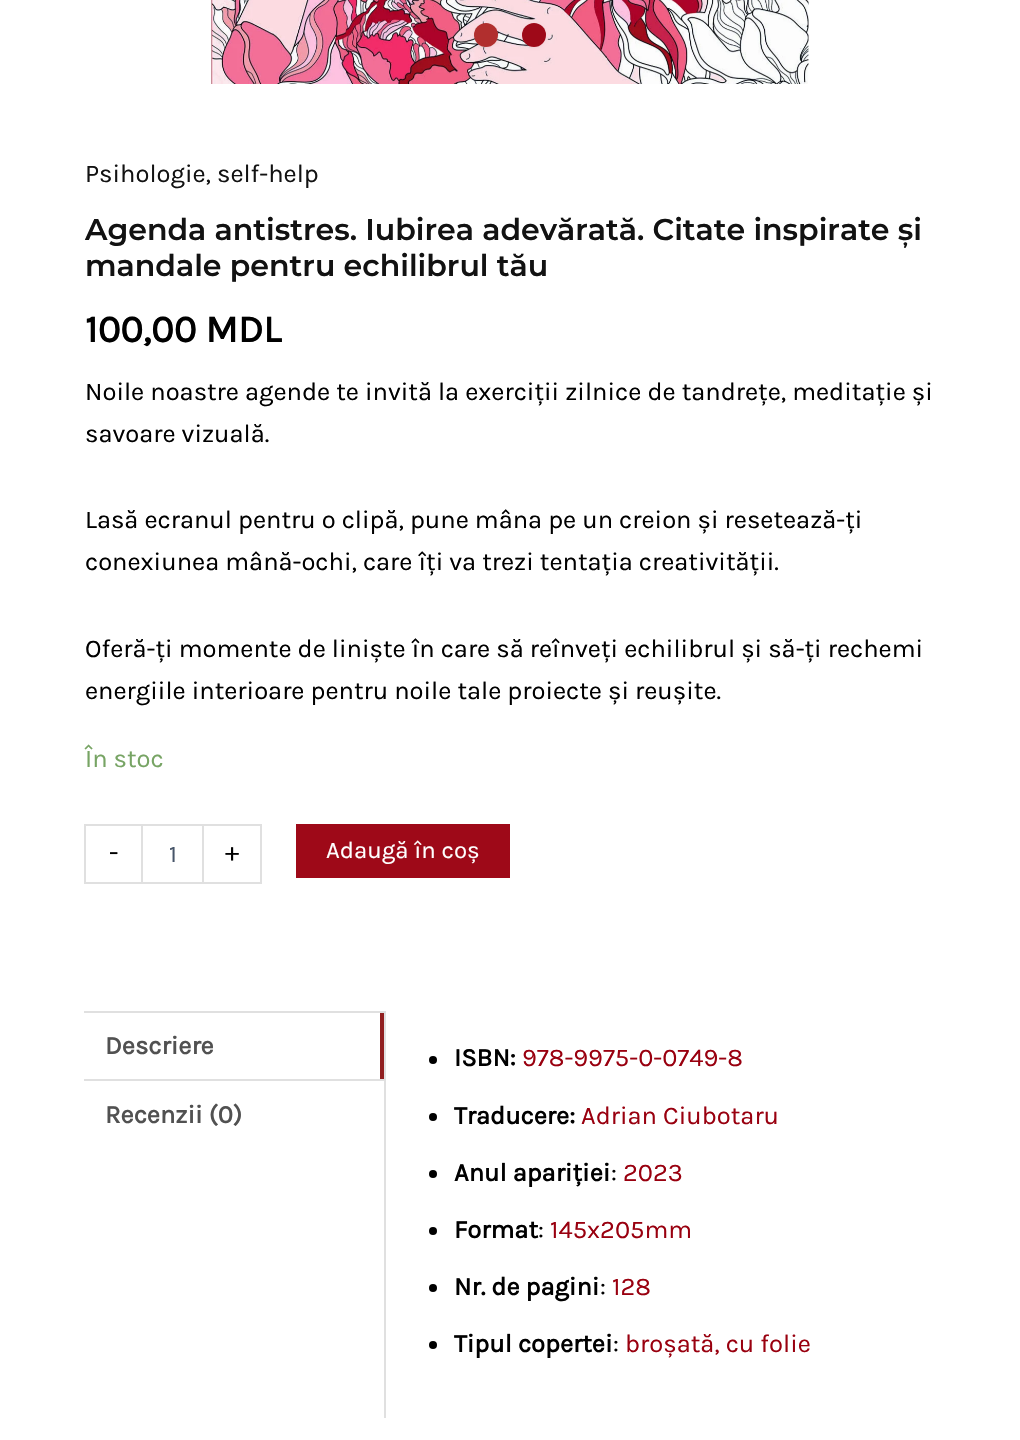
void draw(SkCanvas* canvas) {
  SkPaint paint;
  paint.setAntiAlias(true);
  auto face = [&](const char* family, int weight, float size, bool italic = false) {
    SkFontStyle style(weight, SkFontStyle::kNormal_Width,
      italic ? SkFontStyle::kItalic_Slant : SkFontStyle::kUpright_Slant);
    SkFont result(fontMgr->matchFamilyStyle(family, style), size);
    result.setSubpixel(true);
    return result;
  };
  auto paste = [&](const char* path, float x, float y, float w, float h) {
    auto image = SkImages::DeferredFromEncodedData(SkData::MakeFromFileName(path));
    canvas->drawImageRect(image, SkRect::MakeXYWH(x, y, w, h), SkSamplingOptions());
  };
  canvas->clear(0xffffffff);
  paste("img/1.png", 211, 0, 598, 84);
  paint.setColor(0x0d000000);
  paint.setMaskFilter(SkMaskFilter::MakeBlur(kNormal_SkBlurStyle, 1.5f));
  canvas->drawRoundRect(SkRect::MakeXYWH(474, 24, 24, 24), 12, 12, paint);
  paint.setMaskFilter(nullptr);
  paint.setColor(0xffb12f2e);
  canvas->drawCircle(486, 35, 12, paint);
  paint.setColor(0x0d000000);
  paint.setMaskFilter(SkMaskFilter::MakeBlur(kNormal_SkBlurStyle, 1.5f));
  canvas->drawRoundRect(SkRect::MakeXYWH(522, 24, 24, 24), 12, 12, paint);
  paint.setMaskFilter(nullptr);
  paint.setColor(0xff9e0918);
  canvas->drawCircle(534, 35, 12, paint);
  {
    const struct { float x, y, w, h; SkColor color; } items[] = {
      {84, 824, 57, 2, 0xffe0e0e0},
      {84, 882, 57, 2, 0xffe0e0e0},
      {84, 824, 2, 60, 0xffe0e0e0},
    };
    for (auto [x, y, w, h, color] : items) {
      paint.setColor(color);
      canvas->drawRect(SkRect::MakeXYWH(x, y, w, h), paint);
    }
  }
  paint.setStroke(true);
  paint.setStrokeWidth(2);
  canvas->drawRect(SkRect::MakeXYWH(142, 825, 61, 58), paint);
  paint.setStroke(false);
  {
    const struct { float x, y, w, h; SkColor color; } items[] = {
      {204, 824, 57, 2, 0xffe0e0e0},
      {260, 824, 2, 60, 0xffe0e0e0},
      {204, 882, 57, 2, 0xffe0e0e0},
      {296, 824, 214, 54, 0xff9e0918},
      {380, 1011, 4, 68, 0xff911f20},
      {84, 1011, 300, 2, 0xffe0e0e0},
      {84, 1079, 300, 2, 0xffe0e0e0},
      {384, 1011, 2, 407, 0xffe0e0e0},
    };
    for (auto [x, y, w, h, color] : items) {
      paint.setColor(color);
      canvas->drawRect(SkRect::MakeXYWH(x, y, w, h), paint);
    }
  }
  paint.setColor(0xff000000);
  canvas->drawCircle(433, 1060, 4, paint);
  canvas->drawCircle(433, 1117, 4, paint);
  canvas->drawCircle(433, 1174, 4, paint);
  canvas->drawCircle(433, 1231, 4, paint);
  canvas->drawCircle(433, 1288, 4, paint);
  canvas->drawCircle(433, 1345, 4, paint);
  auto f0 = face("Karla", 400, 25.5f);
  paint.setColor(0xff121212);
  canvas->drawString("Psihologie, self-help", 85, 182, f0, paint);
  auto f1 = face("Montserrat", 600, 30);
  canvas->drawString("Agenda antistres. Iubirea adevărată. Citate inspirate și", 85, 240, f1, paint);
  canvas->drawString("mandale pentru echilibrul tău", 85, 276, f1, paint);
  auto f2 = face("Karla", 700, 38.25f);
  paint.setColor(0xff000000);
  canvas->drawString("100,00 MDL", 85, 342, f2, paint);
  {
    const struct { const char* s; float x, y; } items[] = {
      {"Noile noastre agende te invită la exerciții zilnice de tandrețe, meditație și", 85, 400},
      {"savoare vizuală.", 85, 442},
      {"Lasă ecranul pentru o clipă, pune mâna pe un creion și resetează-ți", 85, 528},
      {"conexiunea mână-ochi, care îți va trezi tentația creativității.", 85, 570},
      {"Oferă-ți momente de liniște în care să reînveți echilibrul și să-ți rechemi", 85, 657},
      {"energiile interioare pentru noile tale proiecte și reușite.", 85, 699},
    };
    for (auto [s, x, y] : items) {
      canvas->drawString(s, x, y, f0, paint);
    }
  }
  paint.setColor(0xff77a464);
  canvas->drawString("În stoc", 85, 767, f0, paint);
  auto f3 = face("Karla", 400, 27);
  paint.setColor(0xff000000);
  canvas->drawString("-", 109, 861, f3, paint);
  auto f4 = face("Karla", 400, 24);
  paint.setColor(0xff475569);
  canvas->drawString("1", 169, 862, f4, paint);
  paint.setColor(0xff000000);
  canvas->drawString("+", 225, 861, f3, paint);
  paint.setColor(0xffffffff);
  canvas->drawString("Adaugă în coș", 326, 858, f4, paint);
  auto f5 = face("Karla", 700, 25.5f);
  paint.setColor(0xff515151);
  canvas->drawString("Descriere", 105, 1054, f5, paint);
  canvas->drawString("Recenzii (0)", 105, 1123, f5, paint);
  paint.setColor(0xff000000);
  canvas->drawString("ISBN:", 454, 1066, f5, paint);
  paint.setColor(0xff99000f);
  canvas->drawString("978-9975-0-0749-8", 522, 1066, f0, paint);
  paint.setColor(0xff000000);
  canvas->drawString("Traducere:", 454, 1124, f5, paint);
  paint.setColor(0xff99000f);
  canvas->drawString("Adrian Ciubotaru", 581, 1124, f0, paint);
  paint.setColor(0xff000000);
  canvas->drawString("Anul apariției", 454, 1181, f5, paint);
  canvas->drawString(":", 611, 1181, f0, paint);
  paint.setColor(0xff99000f);
  canvas->drawString("2023", 623, 1181, f0, paint);
  paint.setColor(0xff000000);
  canvas->drawString("Format", 454, 1238, f5, paint);
  canvas->drawString(":", 538, 1238, f0, paint);
  paint.setColor(0xff99000f);
  canvas->drawString("145x205mm", 550, 1238, f0, paint);
  paint.setColor(0xff000000);
  canvas->drawString("Nr. de pagini", 454, 1295, f5, paint);
  canvas->drawString(":", 600, 1295, f0, paint);
  paint.setColor(0xff99000f);
  canvas->drawString("128", 612, 1295, f0, paint);
  paint.setColor(0xff000000);
  canvas->drawString("Tipul copertei", 454, 1352, f5, paint);
  canvas->drawString(":", 613, 1352, f0, paint);
  paint.setColor(0xff99000f);
  canvas->drawString("broșată, cu folie", 625, 1352, f0, paint);
}
